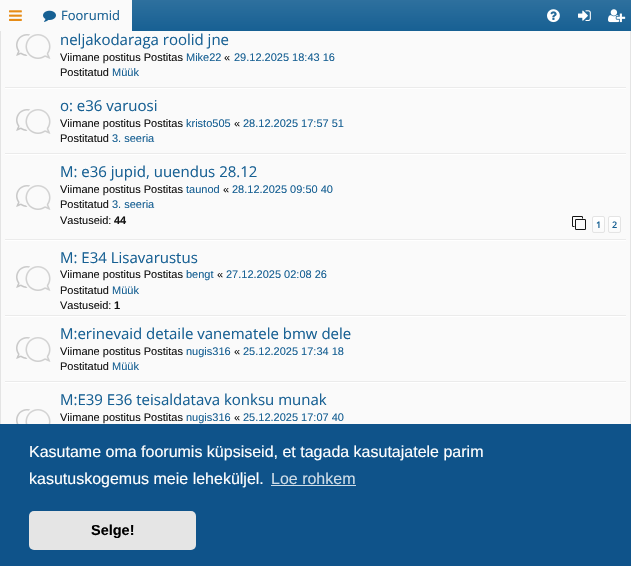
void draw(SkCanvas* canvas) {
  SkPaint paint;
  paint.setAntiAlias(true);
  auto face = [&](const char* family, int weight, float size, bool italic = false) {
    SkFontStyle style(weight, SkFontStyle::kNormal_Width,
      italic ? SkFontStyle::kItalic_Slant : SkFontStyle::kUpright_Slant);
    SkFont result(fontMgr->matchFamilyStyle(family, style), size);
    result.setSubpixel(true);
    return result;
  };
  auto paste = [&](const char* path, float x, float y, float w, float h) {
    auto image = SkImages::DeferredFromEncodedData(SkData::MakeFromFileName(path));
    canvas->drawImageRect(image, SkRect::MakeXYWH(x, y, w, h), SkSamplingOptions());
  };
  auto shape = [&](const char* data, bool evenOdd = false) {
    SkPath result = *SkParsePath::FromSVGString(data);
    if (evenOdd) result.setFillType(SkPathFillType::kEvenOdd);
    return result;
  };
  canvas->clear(0xfffafafa);
  {
    const SkColor colors[] = {0xff2e709e, 0xff176093};
    const float stops[] = {0, 1};
    const SkPoint ends[] = {{316, 0}, {316, 31}};
    paint.setShader(SkGradientShader::MakeLinear(ends, colors, stops, 2, SkTileMode::kClamp));
    paint.setAlpha(255);
  }
  canvas->drawRect(SkRect::MakeXYWH(132, 0, 499, 31), paint);
  paste("img/1.png", 9, 10, 13, 11);
  paste("img/2.png", 43, 10, 13, 12);
  paste("img/3.png", 547, 9, 13, 14);
  paste("img/4.png", 578, 10, 13, 11);
  paste("img/5.png", 608, 9, 18, 14);
  paint.setShader(nullptr);
  {
    const struct { float x, y, w, h; SkColor color; } items[] = {
      {630, 31, 1, 393, 0xffe4e4e4},
      {0, 31, 1, 393, 0xffe4e4e4},
      {5, 87, 621, 1, 0xffebebeb},
    };
    for (auto [x, y, w, h, color] : items) {
      paint.setColor(color);
      canvas->drawRect(SkRect::MakeXYWH(x, y, w, h), paint);
    }
  }
  paste("img/6.png", 16, 34, 35, 25);
  paint.setColor(0xffffffff);
  canvas->drawRect(SkRect::MakeXYWH(5, 88, 621, 1), paint);
  paint.setColor(0xffebebeb);
  canvas->drawRect(SkRect::MakeXYWH(5, 153, 621, 1), paint);
  paste("img/6.png", 16, 109, 35, 25);
  paint.setColor(0xffffffff);
  canvas->drawRect(SkRect::MakeXYWH(5, 154, 621, 1), paint);
  paint.setColor(0xffebebeb);
  canvas->drawRect(SkRect::MakeXYWH(5, 239, 621, 1), paint);
  paste("img/6.png", 16, 185, 35, 25);
  paste("img/7.png", 572, 216, 14, 14);
  canvas->save();
  canvas->clipPath(shape("M594 216H603C604 216 605 217 605 218V231C605 232 604 233 603 233H594C593 233 592 232 592 231V218C592 217 593 216 594 216Z"), true);
  {
    const SkColor colors[] = {0xffffffff, 0xfffafafa};
    const float stops[] = {0, 1};
    const SkPoint ends[] = {{599, 217}, {599, 232}};
    paint.setShader(SkGradientShader::MakeLinear(ends, colors, stops, 2, SkTileMode::kClamp));
    paint.setAlpha(255);
  }
  canvas->drawRect(SkRect::MakeXYWH(592, 217, 13, 15), paint);
  canvas->restore();
  paint.setStroke(true);
  paint.setStrokeWidth(1);
  paint.setShader(nullptr);
  paint.setColor(0xffe4e4e4);
  canvas->drawRoundRect(SkRect::MakeXYWH(592.5f, 216.5f, 12, 16), 1.5f, 1.5f, paint);
  canvas->save();
  canvas->clipPath(shape("M610 216H619C620 216 621 217 621 218V231C621 232 620 233 619 233H610C609 233 608 232 608 231V218C608 217 609 216 610 216Z"), true);
  paint.setStroke(false);
  {
    const SkColor colors[] = {0xffffffff, 0xfffafafa};
    const float stops[] = {0, 1};
    const SkPoint ends[] = {{615, 217}, {615, 232}};
    paint.setShader(SkGradientShader::MakeLinear(ends, colors, stops, 2, SkTileMode::kClamp));
    paint.setAlpha(255);
  }
  canvas->drawRect(SkRect::MakeXYWH(608, 217, 13, 15), paint);
  canvas->restore();
  paint.setStroke(true);
  paint.setShader(nullptr);
  paint.setColor(0xffe4e4e4);
  canvas->drawRoundRect(SkRect::MakeXYWH(608.5f, 216.5f, 12, 16), 1.5f, 1.5f, paint);
  paint.setStroke(false);
  paint.setColor(0xffffffff);
  canvas->drawRect(SkRect::MakeXYWH(5, 240, 621, 1), paint);
  paint.setColor(0xffebebeb);
  canvas->drawRect(SkRect::MakeXYWH(5, 315, 621, 1), paint);
  paste("img/6.png", 16, 266, 35, 25);
  paint.setColor(0xffffffff);
  canvas->drawRect(SkRect::MakeXYWH(5, 316, 621, 1), paint);
  paint.setColor(0xffebebeb);
  canvas->drawRect(SkRect::MakeXYWH(5, 381, 621, 1), paint);
  paste("img/6.png", 16, 337, 35, 25);
  paint.setColor(0xffffffff);
  canvas->drawRect(SkRect::MakeXYWH(5, 382, 621, 1), paint);
  paste("img/8.png", 16, 409, 35, 15);
  paint.setColor(0xff0f538a);
  canvas->drawRect(SkRect::MakeXYWH(0, 424, 631, 142), paint);
  paint.setColor(0xffcfdde8);
  canvas->drawRect(SkRect::MakeXYWH(271, 485, 85, 1), paint);
  paint.setColor(0xffe5e5e5);
  canvas->drawRoundRect(SkRect::MakeXYWH(29, 511, 167, 39), 5, 5, paint);
  auto f0 = face("Open Sans", 400, 13);
  paint.setColor(0xff176093);
  canvas->drawString("Foorumid", 61, 20, f0, paint);
  auto f1 = face("Open Sans", 400, 15);
  canvas->drawString("neljakodaraga roolid jne", 60, 45, f1, paint);
  auto f2 = face("Liberation Sans", 400, 11);
  paint.setColor(0xff141414);
  canvas->drawString("Viimane postitus Postitas", 60, 61, f2, paint);
  paint.setColor(0xff176093);
  canvas->drawString("Mike22", 186, 61, f2, paint);
  paint.setColor(0xff141414);
  canvas->drawString("«", 224, 61, f2, paint);
  paint.setColor(0xff176093);
  canvas->drawString("29.12.2025 18:43 16", 234, 61, f2, paint);
  paint.setColor(0xff141414);
  canvas->drawString("Postitatud", 60, 76, f2, paint);
  paint.setColor(0xff176093);
  canvas->drawString("Müük", 112, 76, f2, paint);
  canvas->drawString("o: e36 varuosi", 60, 111, f1, paint);
  paint.setColor(0xff141414);
  canvas->drawString("Viimane postitus Postitas", 60, 127, f2, paint);
  paint.setColor(0xff176093);
  canvas->drawString("kristo505", 186, 127, f2, paint);
  paint.setColor(0xff141414);
  canvas->drawString("«", 234, 127, f2, paint);
  paint.setColor(0xff176093);
  canvas->drawString("28.12.2025 17:57 51", 243, 127, f2, paint);
  paint.setColor(0xff141414);
  canvas->drawString("Postitatud", 60, 142, f2, paint);
  paint.setColor(0xff176093);
  canvas->drawString("3. seeria", 112, 142, f2, paint);
  canvas->drawString("M: e36 jupid, uuendus 28.12", 60, 177, f1, paint);
  paint.setColor(0xff141414);
  canvas->drawString("Viimane postitus Postitas", 60, 193, f2, paint);
  paint.setColor(0xff176093);
  canvas->drawString("taunod", 186, 193, f2, paint);
  paint.setColor(0xff141414);
  canvas->drawString("«", 223, 193, f2, paint);
  paint.setColor(0xff176093);
  canvas->drawString("28.12.2025 09:50 40", 232, 193, f2, paint);
  paint.setColor(0xff141414);
  canvas->drawString("Postitatud", 60, 208, f2, paint);
  paint.setColor(0xff176093);
  canvas->drawString("3. seeria", 112, 208, f2, paint);
  paint.setColor(0xff141414);
  canvas->drawString("Vastuseid:", 60, 224, f2, paint);
  auto f3 = face("Liberation Sans", 700, 11);
  canvas->drawString("44", 114, 224, f3, paint);
  auto f4 = face("Open Sans", 600, 9);
  paint.setColor(0xff176093);
  canvas->drawString("1", 596, 228, f4, paint);
  canvas->drawString("2", 612, 228, f4, paint);
  canvas->drawString("M: E34 Lisavarustus", 60, 263, f1, paint);
  paint.setColor(0xff141414);
  canvas->drawString("Viimane postitus Postitas", 60, 278, f2, paint);
  paint.setColor(0xff176093);
  canvas->drawString("bengt", 186, 278, f2, paint);
  paint.setColor(0xff141414);
  canvas->drawString("«", 217, 278, f2, paint);
  paint.setColor(0xff176093);
  canvas->drawString("27.12.2025 02:08 26", 226, 278, f2, paint);
  paint.setColor(0xff141414);
  canvas->drawString("Postitatud", 60, 294, f2, paint);
  paint.setColor(0xff176093);
  canvas->drawString("Müük", 112, 294, f2, paint);
  paint.setColor(0xff141414);
  canvas->drawString("Vastuseid:", 60, 309, f2, paint);
  canvas->drawString("1", 114, 309, f3, paint);
  paint.setColor(0xff176093);
  canvas->drawString("M:erinevaid detaile vanematele bmw dele", 60, 339, f1, paint);
  paint.setColor(0xff141414);
  canvas->drawString("Viimane postitus Postitas", 60, 355, f2, paint);
  paint.setColor(0xff176093);
  canvas->drawString("nugis316", 186, 355, f2, paint);
  paint.setColor(0xff141414);
  canvas->drawString("«", 234, 355, f2, paint);
  paint.setColor(0xff176093);
  canvas->drawString("25.12.2025 17:34 18", 243, 355, f2, paint);
  paint.setColor(0xff141414);
  canvas->drawString("Postitatud", 60, 370, f2, paint);
  paint.setColor(0xff176093);
  canvas->drawString("Müük", 112, 370, f2, paint);
  canvas->drawString("M:E39 E36 teisaldatava konksu munak", 60, 405, f1, paint);
  paint.setColor(0xff141414);
  canvas->drawString("Viimane postitus Postitas", 60, 421, f2, paint);
  paint.setColor(0xff176093);
  canvas->drawString("nugis316", 186, 421, f2, paint);
  paint.setColor(0xff141414);
  canvas->drawString("«", 234, 421, f2, paint);
  paint.setColor(0xff176093);
  canvas->drawString("25.12.2025 17:07 40", 243, 421, f2, paint);
  auto f5 = face("Liberation Sans", 400, 16);
  paint.setColor(0xffffffff);
  canvas->drawString("Kasutame oma foorumis küpsiseid, et tagada kasutajatele parim", 29, 457, f5, paint);
  canvas->drawString("kasutuskogemus meie leheküljel.", 29, 484, f5, paint);
  paint.setColor(0xffcfdde8);
  canvas->drawString("Loe rohkem", 271, 484, f5, paint);
  auto f6 = face("Liberation Sans", 700, 14.5f);
  paint.setColor(0xff000000);
  canvas->drawString("Selge!", 91, 535, f6, paint);
}
